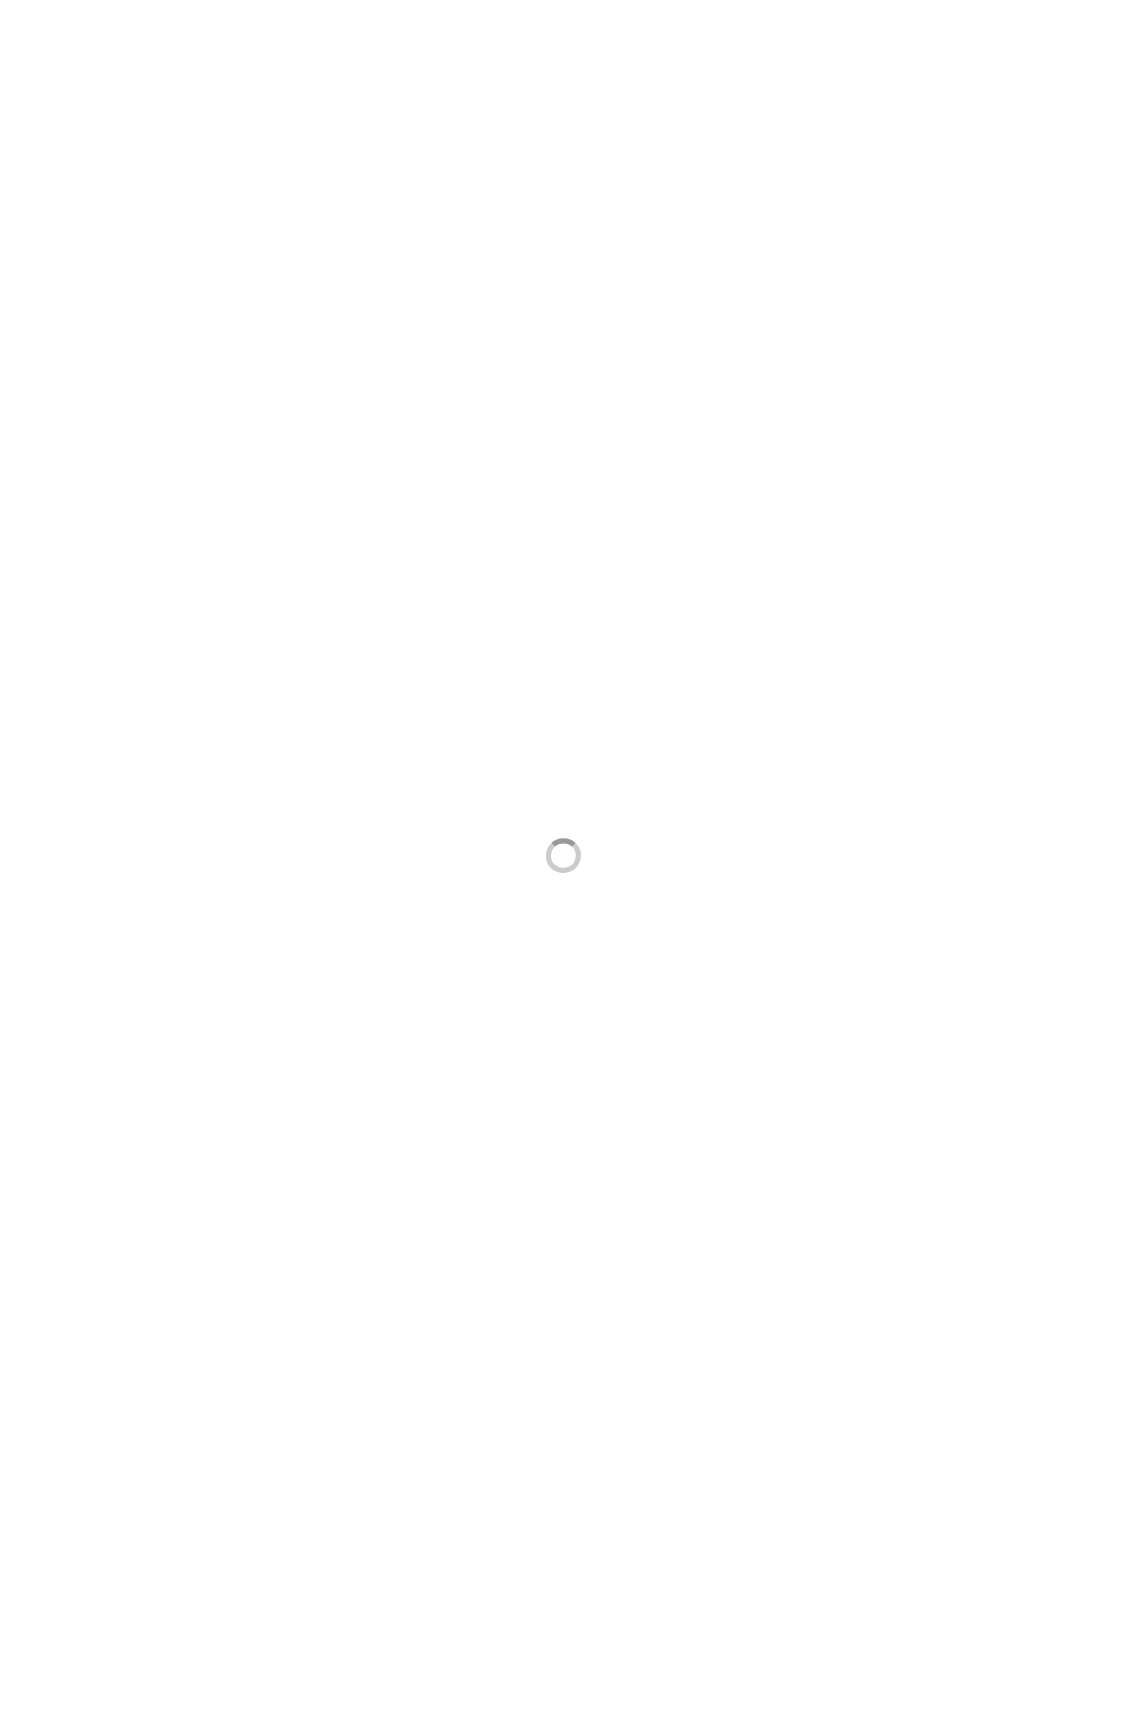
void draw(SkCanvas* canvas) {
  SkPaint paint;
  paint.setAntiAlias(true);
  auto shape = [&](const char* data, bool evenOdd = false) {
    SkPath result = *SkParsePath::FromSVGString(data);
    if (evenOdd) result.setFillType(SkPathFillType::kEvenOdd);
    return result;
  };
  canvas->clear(0xffffffff);
  paint.setStroke(true);
  paint.setStrokeWidth(5.2f);
  paint.setColor(0xff999999);
  canvas->drawPath(shape("M553 845C558.5 839.5 568.5 839.5 574 845"), paint);
  paint.setColor(0xffcccccc);
  canvas->drawPath(shape("M574 845C577.5 848.5 579 854 578 858.5C574.5 876 548.5 873.5 548.5 856C548.5 852 550 848 553 845"), paint);
}
